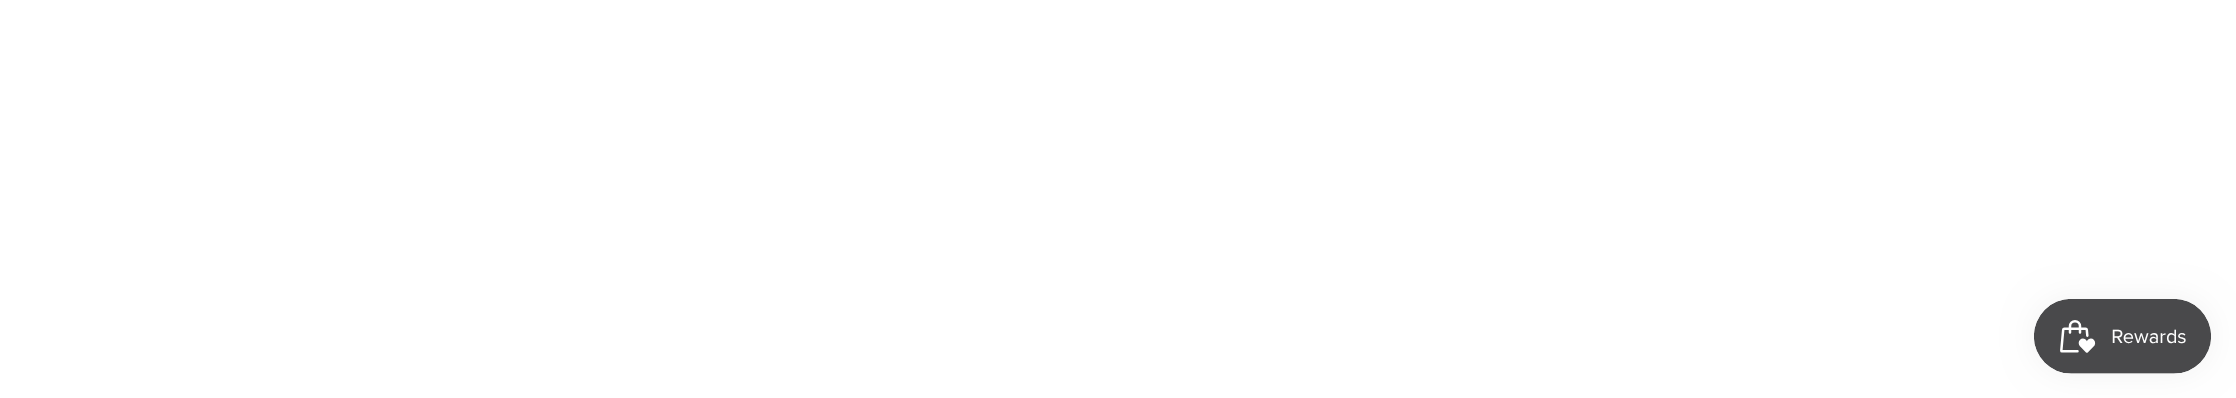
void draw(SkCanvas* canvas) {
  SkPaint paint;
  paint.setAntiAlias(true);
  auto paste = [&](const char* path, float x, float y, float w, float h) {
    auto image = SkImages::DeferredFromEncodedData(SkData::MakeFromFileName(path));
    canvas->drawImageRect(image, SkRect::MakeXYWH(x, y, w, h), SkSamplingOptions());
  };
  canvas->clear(0xffffffff);
  paint.setColor(0x0d000000);
  paint.setMaskFilter(SkMaskFilter::MakeBlur(kNormal_SkBlurStyle, 15.5f));
  canvas->drawRoundRect(SkRect::MakeXYWH(2034, 299, 177, 75), 37.5f, 37.5f, paint);
  paint.setMaskFilter(nullptr);
  paste("img/1.png", 2034, 299, 177, 75);
}
